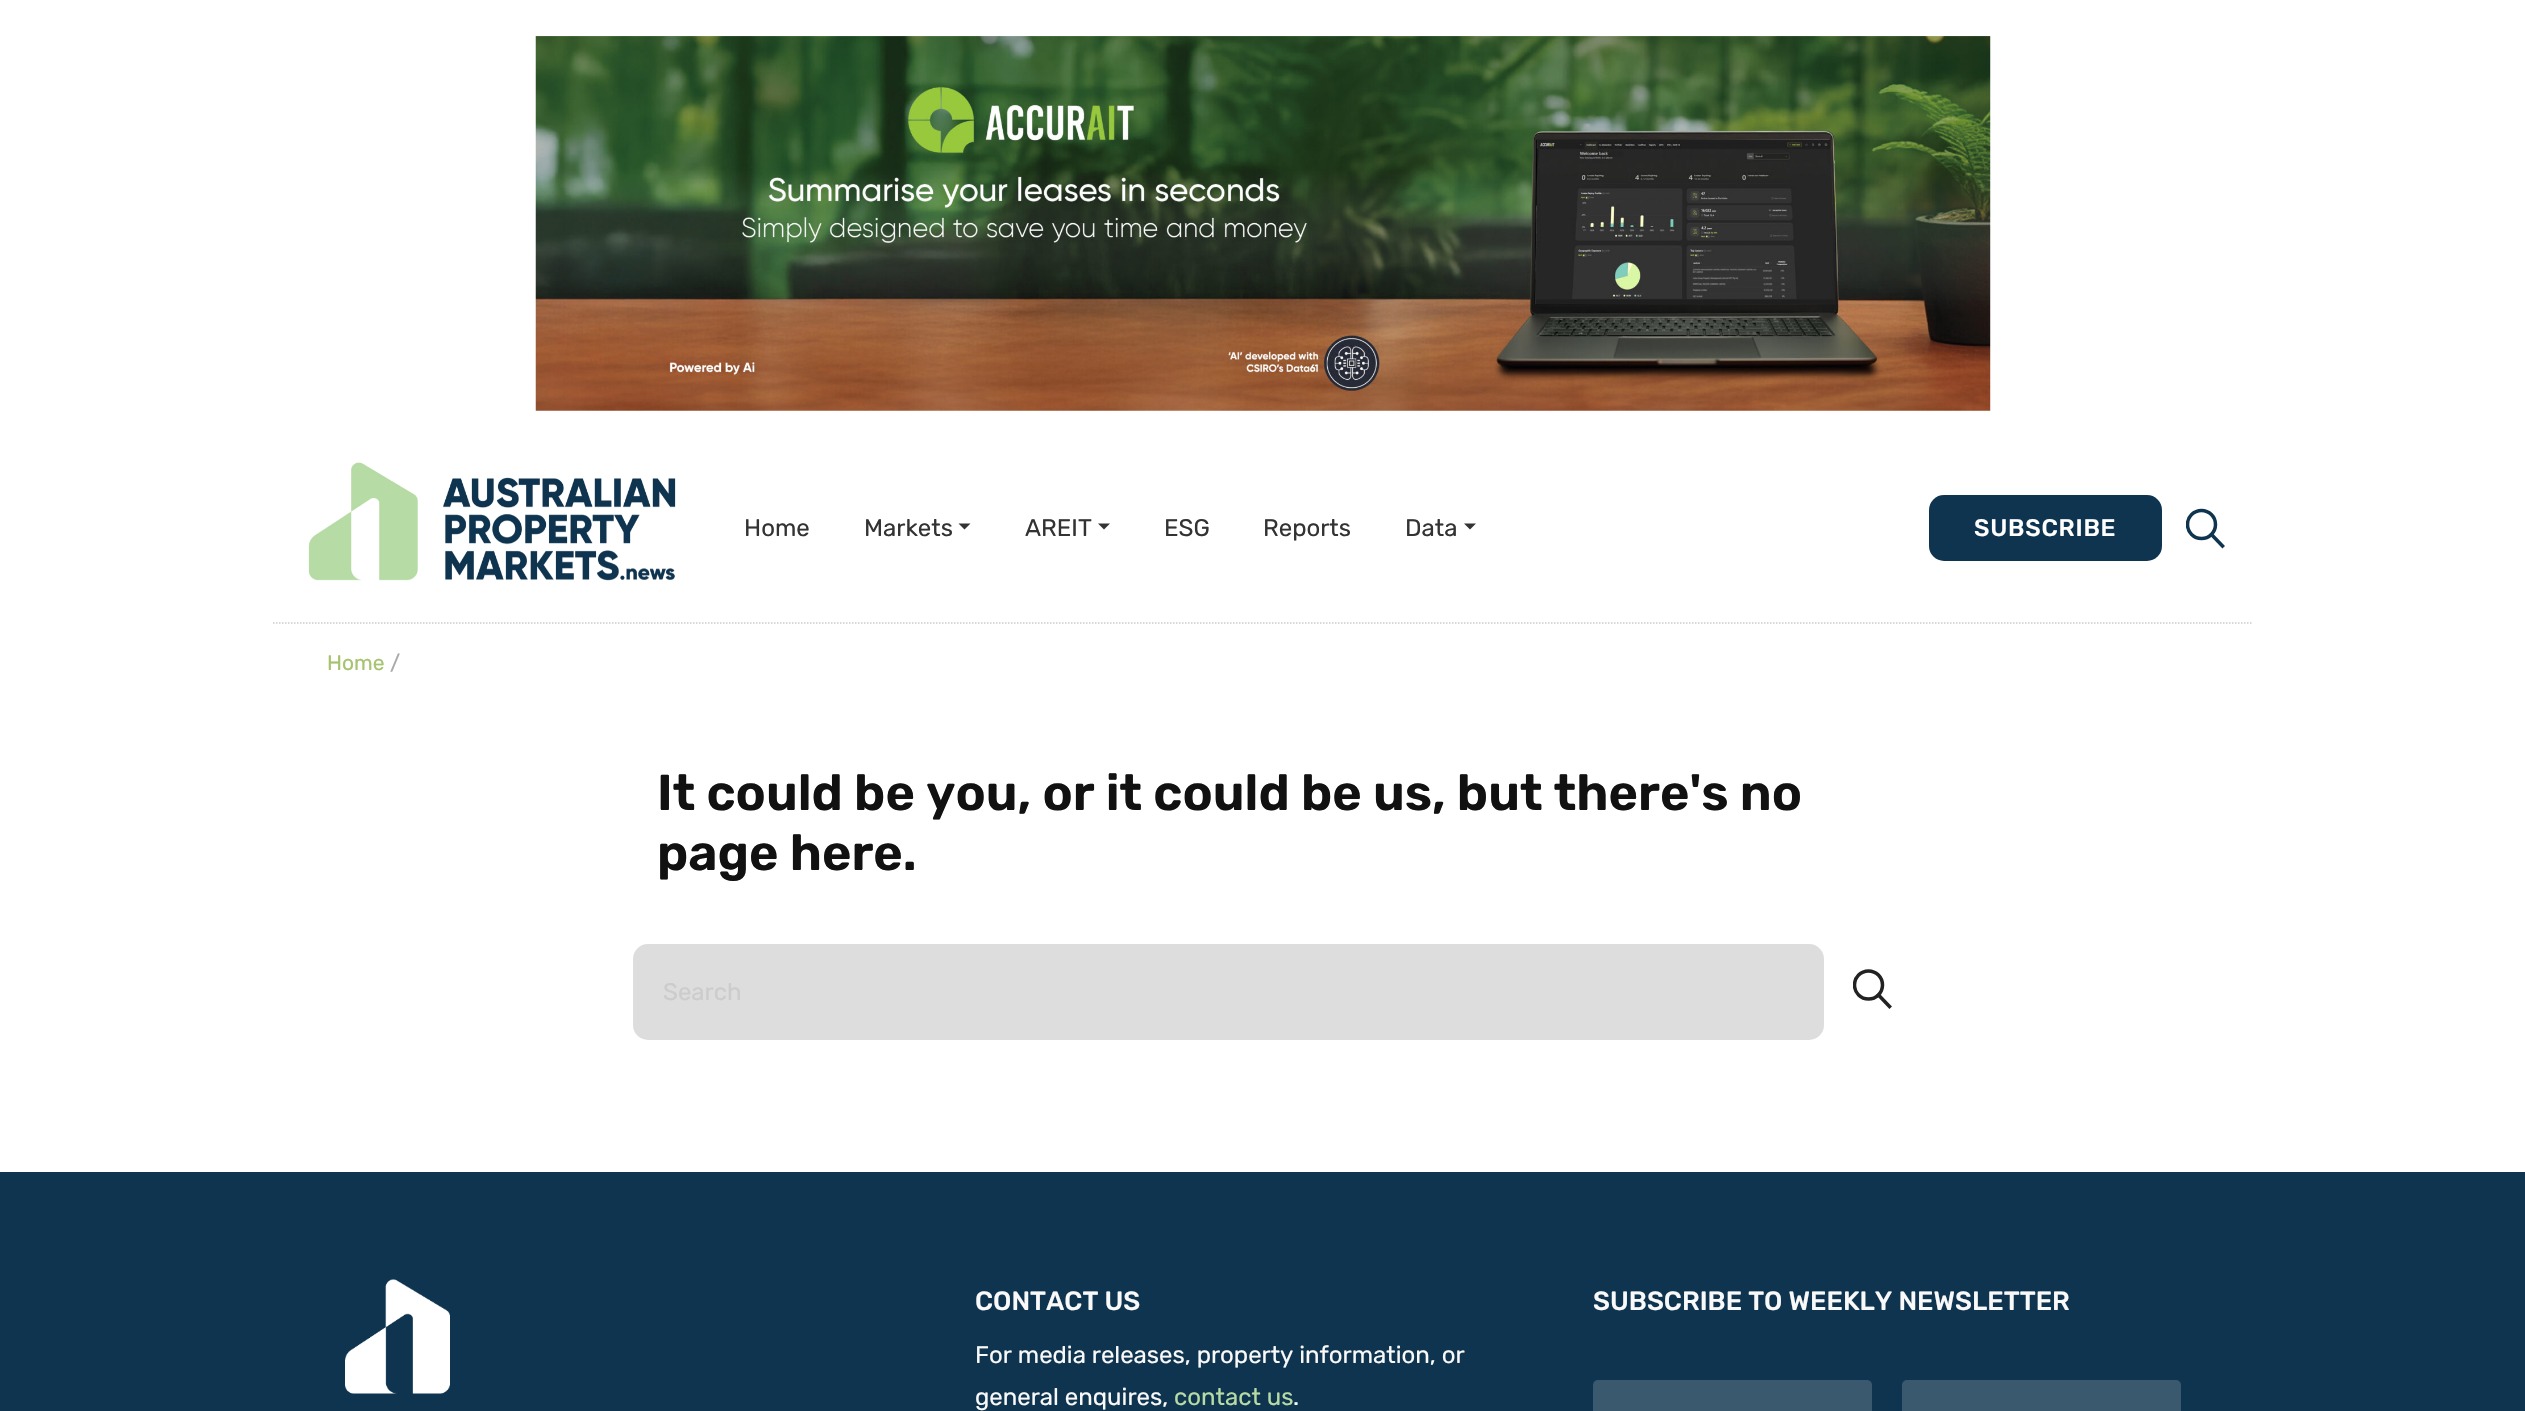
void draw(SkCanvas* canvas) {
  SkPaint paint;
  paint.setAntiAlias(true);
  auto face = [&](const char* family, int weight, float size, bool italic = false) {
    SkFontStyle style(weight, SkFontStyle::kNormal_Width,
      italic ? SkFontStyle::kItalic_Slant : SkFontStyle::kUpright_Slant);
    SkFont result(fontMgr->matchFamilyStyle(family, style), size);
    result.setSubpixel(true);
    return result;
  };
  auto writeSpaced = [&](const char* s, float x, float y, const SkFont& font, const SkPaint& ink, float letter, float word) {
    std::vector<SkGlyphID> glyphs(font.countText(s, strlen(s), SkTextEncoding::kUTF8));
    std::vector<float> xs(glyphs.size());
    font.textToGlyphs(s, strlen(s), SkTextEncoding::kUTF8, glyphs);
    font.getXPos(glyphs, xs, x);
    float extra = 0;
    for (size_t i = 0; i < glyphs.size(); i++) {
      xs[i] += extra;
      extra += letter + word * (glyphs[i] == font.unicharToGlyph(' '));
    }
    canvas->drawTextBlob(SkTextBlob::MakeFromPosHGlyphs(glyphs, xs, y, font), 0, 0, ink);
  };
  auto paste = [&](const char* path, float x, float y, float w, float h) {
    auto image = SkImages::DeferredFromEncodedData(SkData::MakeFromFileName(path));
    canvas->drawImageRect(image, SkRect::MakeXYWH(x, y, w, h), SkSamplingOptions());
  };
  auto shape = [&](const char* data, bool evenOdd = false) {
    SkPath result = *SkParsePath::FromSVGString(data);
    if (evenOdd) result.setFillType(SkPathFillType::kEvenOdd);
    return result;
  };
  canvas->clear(0xffffffff);
  paste("img/1.png", 535, 36, 1456, 375);
  paint.setStroke(true);
  paint.setStrokeWidth(1.5f);
  paint.setColor(0xffcccccc);
  paint.setPathEffect(SkDashPathEffect::Make({{1.5f, 1.5f}}, 0));
  canvas->drawPath(shape("M273 623H2253"), paint);
  paint.setPathEffect(nullptr);
  paste("img/2.png", 308, 462, 368, 119);
  paint.setStroke(false);
  paint.setColor(0xff333333);
  canvas->drawPath(shape("M958.5 523.5H970.5L964.5 529.5Z"), paint);
  canvas->drawPath(shape("M1098 523.5H1110L1104 529.5Z"), paint);
  canvas->drawPath(shape("M1464 523.5H1476L1470 529.5Z"), paint);
  paint.setColor(0xff0f344f);
  canvas->drawRoundRect(SkRect::MakeXYWH(1929, 495, 233, 66), 15, 15, paint);
  paint.setStroke(true);
  paint.setStrokeWidth(3.5f);
  paint.setStrokeCap(SkPaint::kSquare_Cap);
  canvas->drawPath(shape("M2222.5 546L2211.5 534.5"), paint);
  canvas->save();
  canvas->clipRect(SkRect::MakeXYWH(2186, 507, 40, 42));
  paint.setStrokeCap(SkPaint::kButt_Cap);
  canvas->drawCircle(2201.5f, 524.5f, 14, paint);
  canvas->restore();
  paint.setStroke(false);
  paint.setColor(0xffdddddd);
  canvas->drawRoundRect(SkRect::MakeXYWH(633, 944, 1191, 96), 15, 15, paint);
  paint.setStroke(true);
  paint.setStrokeCap(SkPaint::kSquare_Cap);
  paint.setColor(0xff222222);
  canvas->drawPath(shape("M1889.5 1006.5L1878.5 995"), paint);
  canvas->save();
  canvas->clipRect(SkRect::MakeXYWH(1853, 968, 40, 42));
  paint.setStrokeCap(SkPaint::kButt_Cap);
  canvas->drawCircle(1868.5f, 985, 14, paint);
  canvas->restore();
  paint.setStroke(false);
  paint.setColor(0xff0f344f);
  canvas->drawRect(SkRect::MakeXYWH(0, 1172, 2525, 239), paint);
  paste("img/3.png", 345, 1279, 105, 115);
  paint.setColor(0xff3a596f);
  canvas->drawRoundRect(SkRect::MakeXYWH(1593, 1380, 279, 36), 5, 5, paint);
  canvas->drawRoundRect(SkRect::MakeXYWH(1902, 1380, 279, 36), 5, 5, paint);
  auto f0 = face("Rubik", 400, 24);
  paint.setColor(0xff333333);
  {
    const struct { const char* s; float x, y; } items[] = {
      {"Home", 744, 536},
      {"Markets", 864, 536},
      {"AREIT", 1025, 536},
      {"ESG", 1164, 536},
      {"Reports", 1263, 536},
      {"Data", 1405, 536},
    };
    for (auto [s, x, y] : items) {
      canvas->drawString(s, x, y, f0, paint);
    }
  }
  auto f1 = face("Rubik", 500, 24);
  paint.setColor(0xffffffff);
  writeSpaced("SUBSCRIBE", 1974, 536, f1, paint, 0.75f, 0);
  auto f2 = face("Rubik", 400, 21);
  paint.setColor(0xffa6c36f);
  canvas->drawString("Home", 327, 670, f2, paint);
  paint.setColor(0xffaaaaaa);
  canvas->drawString("/", 390, 670, f2, paint);
  auto f3 = face("Rubik", 600, 50.4f);
  paint.setColor(0xff111111);
  canvas->drawString("It could be you, or it could be us, but there's no", 657, 810, f3, paint);
  canvas->drawString("page here.", 657, 870, f3, paint);
  paint.setColor(0xffcccccc);
  canvas->drawString("Search", 663, 1000, f0, paint);
  auto f4 = face("Rubik", 500, 26.4f);
  paint.setColor(0xfff9f9f9);
  canvas->drawString("CONTACT US", 975, 1310, f4, paint);
  canvas->drawString("For media releases, property information, or", 975, 1363, f0, paint);
  canvas->drawString("general enquires,", 975, 1405, f0, paint);
  paint.setColor(0xffb6dba5);
  canvas->drawString("contact us", 1174, 1405, f0, paint);
  paint.setColor(0xfff9f9f9);
  canvas->drawString(".", 1293, 1405, f0, paint);
  canvas->drawString("SUBSCRIBE TO WEEKLY NEWSLETTER", 1593, 1310, f4, paint);
}
